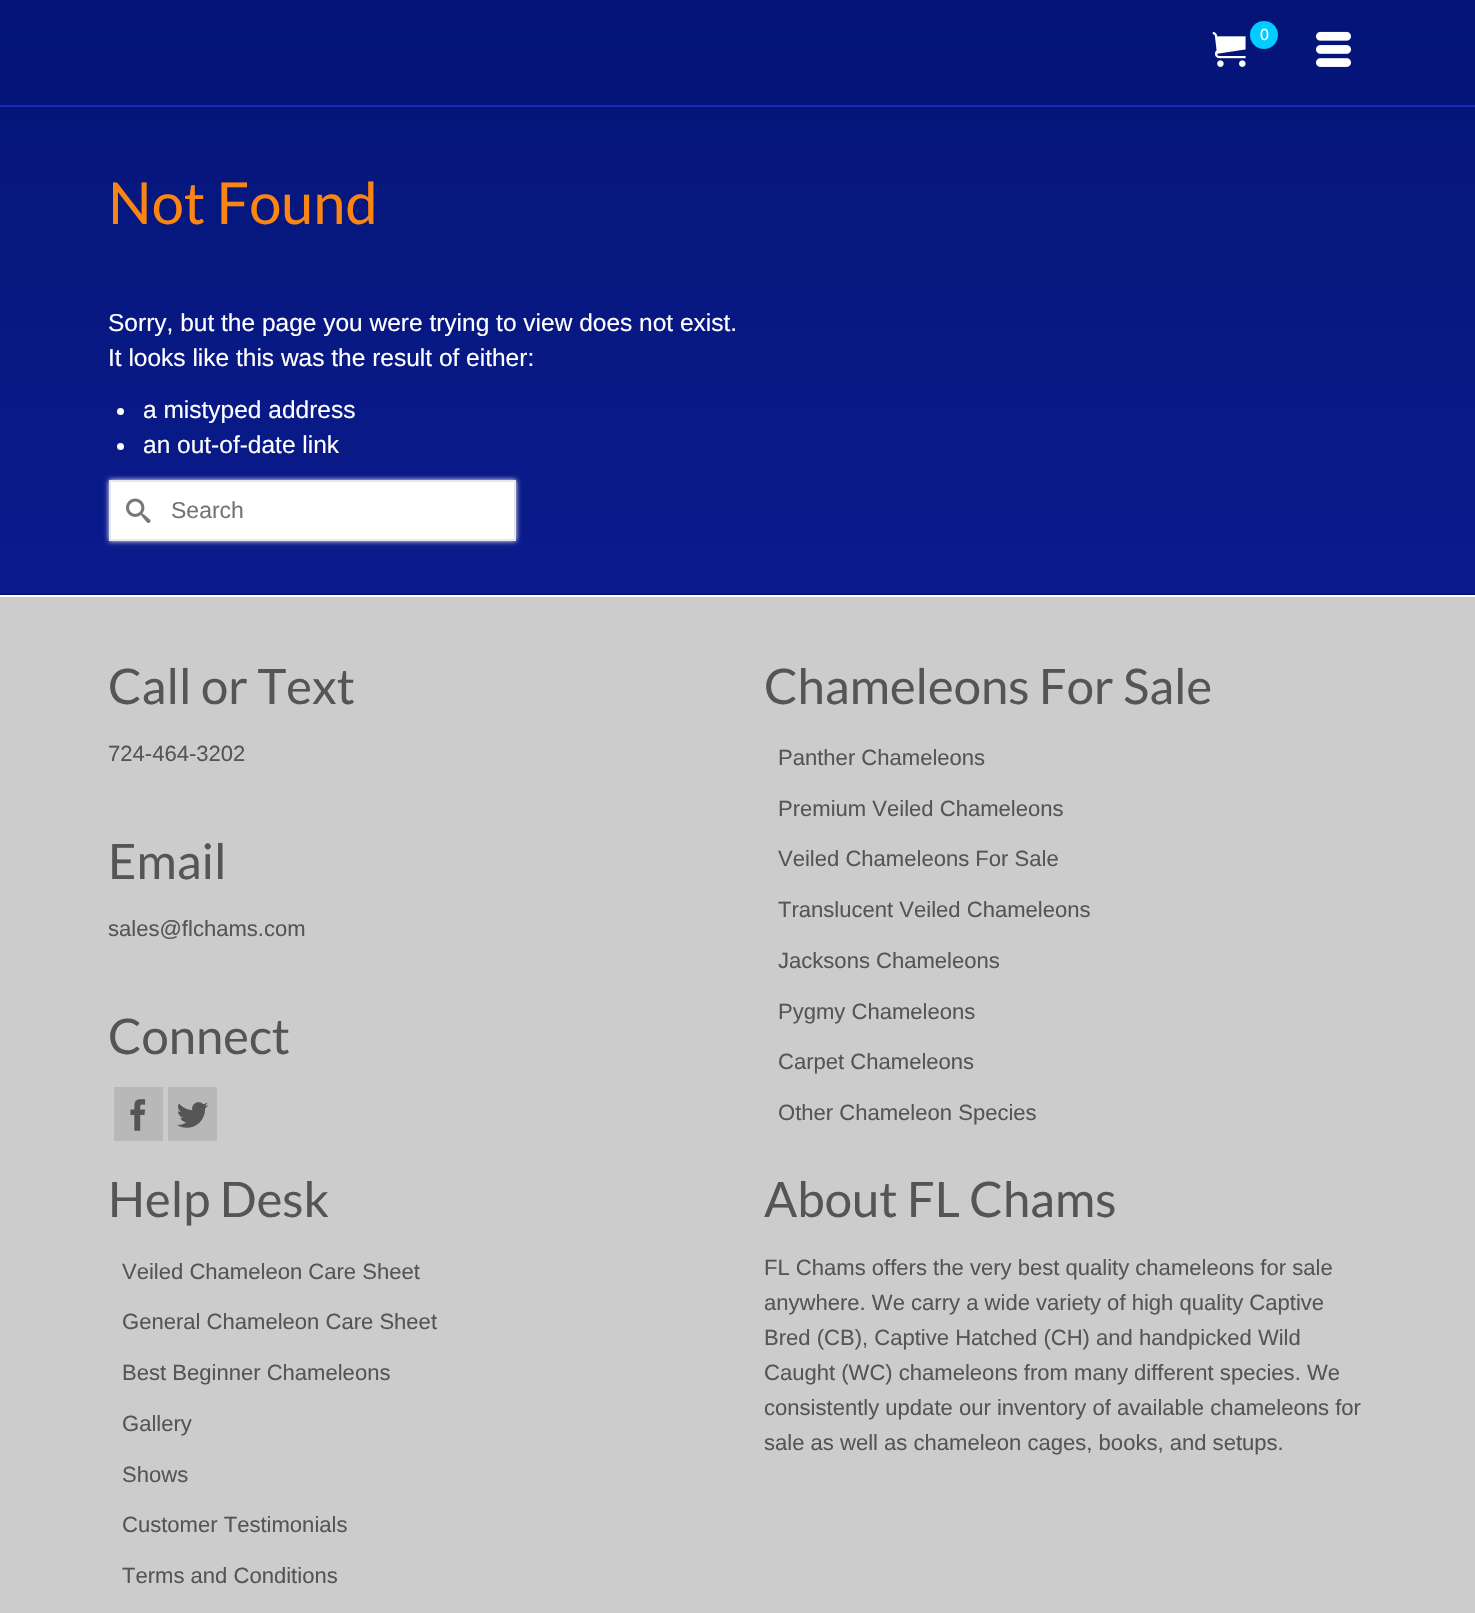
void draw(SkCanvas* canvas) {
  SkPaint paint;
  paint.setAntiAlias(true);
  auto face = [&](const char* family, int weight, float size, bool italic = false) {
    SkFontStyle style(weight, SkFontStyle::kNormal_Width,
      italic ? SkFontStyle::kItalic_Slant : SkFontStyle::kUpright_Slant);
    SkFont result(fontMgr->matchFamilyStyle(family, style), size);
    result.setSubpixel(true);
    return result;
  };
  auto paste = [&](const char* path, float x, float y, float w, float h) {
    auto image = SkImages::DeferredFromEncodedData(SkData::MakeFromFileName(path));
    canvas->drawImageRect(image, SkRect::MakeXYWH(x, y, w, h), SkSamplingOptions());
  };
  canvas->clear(0xffffffff);
  {
    const SkColor colors[] = {0xff041477, 0xff162cb7};
    const float stops[] = {0, 1};
    const SkPoint ends[] = {{738, 0}, {738, 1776}};
    paint.setShader(SkGradientShader::MakeLinear(ends, colors, stops, 2, SkTileMode::kClamp));
    paint.setAlpha(255);
  }
  canvas->drawRect(SkRect::MakeXYWH(0, 0, 1475, 593), paint);
  paste("img/1.png", 1212, 32, 34, 35);
  paint.setShader(nullptr);
  paint.setColor(0xff00ccff);
  canvas->drawCircle(1264, 35, 14, paint);
  paste("img/2.png", 1316, 31, 35, 36);
  {
    const struct { float x, y, w, h; SkColor color; } items[] = {
      {0, 105, 1475, 2, 0xff162cb7},
      {0, 593, 1475, 2, 0xff041477},
      {109, 133, 1260, 2, 0xff051576},
      {109, 268, 1260, 2, 0xff07177b},
    };
    for (auto [x, y, w, h, color] : items) {
      paint.setColor(color);
      canvas->drawRect(SkRect::MakeXYWH(x, y, w, h), paint);
    }
  }
  paint.setColor(0xffffffff);
  canvas->drawCircle(120.5f, 411.5f, 3.5f, paint);
  canvas->drawCircle(120.5f, 446.5f, 3.5f, paint);
  paint.setMaskFilter(SkMaskFilter::MakeBlur(kNormal_SkBlurStyle, 2.5f));
  canvas->drawRect(SkRect::MakeXYWH(109, 480, 407, 61), paint);
  paint.setMaskFilter(nullptr);
  canvas->drawRect(SkRect::MakeXYWH(110, 481, 405, 59), paint);
  paint.setStroke(true);
  paint.setStrokeWidth(2);
  paint.setColor(0xffe7e7e7);
  canvas->drawRect(SkRect::MakeXYWH(110, 481, 405, 59), paint);
  paste("img/3.png", 126, 498, 25, 25);
  paint.setStroke(false);
  paint.setColor(0xffcccccc);
  canvas->drawRect(SkRect::MakeXYWH(0, 597, 1475, 1016), paint);
  paint.setColor(0xffb8b8b8);
  canvas->drawRect(SkRect::MakeXYWH(114, 1087, 49, 54), paint);
  paste("img/4.png", 130, 1099, 16, 32);
  canvas->drawRect(SkRect::MakeXYWH(168, 1087, 49, 54), paint);
  paste("img/5.png", 177, 1102, 31, 26);
  auto f0 = face("Liberation Sans", 400, 16);
  paint.setColor(0xffffffff);
  canvas->drawString("0", 1260, 40, f0, paint);
  auto f1 = face("Lato", 400, 57.75f);
  paint.setColor(0xfffb8512);
  canvas->drawString("Not Found", 108, 224, f1, paint);
  auto f2 = face("Liberation Sans", 400, 24.5f);
  paint.setColor(0xffffffff);
  {
    const struct { const char* s; float x, y; } items[] = {
      {"Sorry, but the page you were trying to view does not exist.", 108, 331},
      {"It looks like this was the result of either:", 108, 366},
      {"a mistyped address", 143, 418},
      {"an out-of-date link", 143, 453},
    };
    for (auto [s, x, y] : items) {
      canvas->drawString(s, x, y, f2, paint);
    }
  }
  auto f3 = face("Liberation Sans", 400, 23);
  paint.setColor(0xff757575);
  canvas->drawString("Search", 171, 518, f3, paint);
  auto f4 = face("Lato", 400, 49);
  paint.setColor(0xff555555);
  canvas->drawString("Call or Text", 108, 704, f4, paint);
  auto f5 = face("Liberation Sans", 400, 22.05f);
  canvas->drawString("724-464-3202", 108, 761, f5, paint);
  canvas->drawString("Email", 108, 879, f4, paint);
  canvas->drawString("sales@flchams.com", 108, 936, f5, paint);
  canvas->drawString("Connect", 108, 1054, f4, paint);
  canvas->drawString("Chameleons For Sale", 764, 704, f4, paint);
  {
    const struct { const char* s; float x, y; } items[] = {
      {"Panther Chameleons", 778, 765},
      {"Premium Veiled Chameleons", 778, 816},
      {"Veiled Chameleons For Sale", 778, 866},
      {"Translucent Veiled Chameleons", 778, 917},
      {"Jacksons Chameleons", 778, 968},
      {"Pygmy Chameleons", 778, 1019},
      {"Carpet Chameleons", 778, 1069},
      {"Other Chameleon Species", 778, 1120},
    };
    for (auto [s, x, y] : items) {
      canvas->drawString(s, x, y, f5, paint);
    }
  }
  canvas->drawString("Help Desk", 108, 1217, f4, paint);
  {
    const struct { const char* s; float x, y; } items[] = {
      {"Veiled Chameleon Care Sheet", 122, 1279},
      {"General Chameleon Care Sheet", 122, 1329},
      {"Best Beginner Chameleons", 122, 1380},
      {"Gallery", 122, 1431},
      {"Shows", 122, 1482},
      {"Customer Testimonials", 122, 1532},
      {"Terms and Conditions", 122, 1583},
    };
    for (auto [s, x, y] : items) {
      canvas->drawString(s, x, y, f5, paint);
    }
  }
  canvas->drawString("About FL Chams", 764, 1217, f4, paint);
  {
    const struct { const char* s; float x, y; } items[] = {
      {"FL Chams offers the very best quality chameleons for sale", 764, 1275},
      {"anywhere. We carry a wide variety of high quality Captive", 764, 1310},
      {"Bred (CB), Captive Hatched (CH) and handpicked Wild", 764, 1345},
      {"Caught (WC) chameleons from many different species. We", 764, 1380},
      {"consistently update our inventory of available chameleons for", 764, 1415},
      {"sale as well as chameleon cages, books, and setups.", 764, 1450},
    };
    for (auto [s, x, y] : items) {
      canvas->drawString(s, x, y, f5, paint);
    }
  }
}
